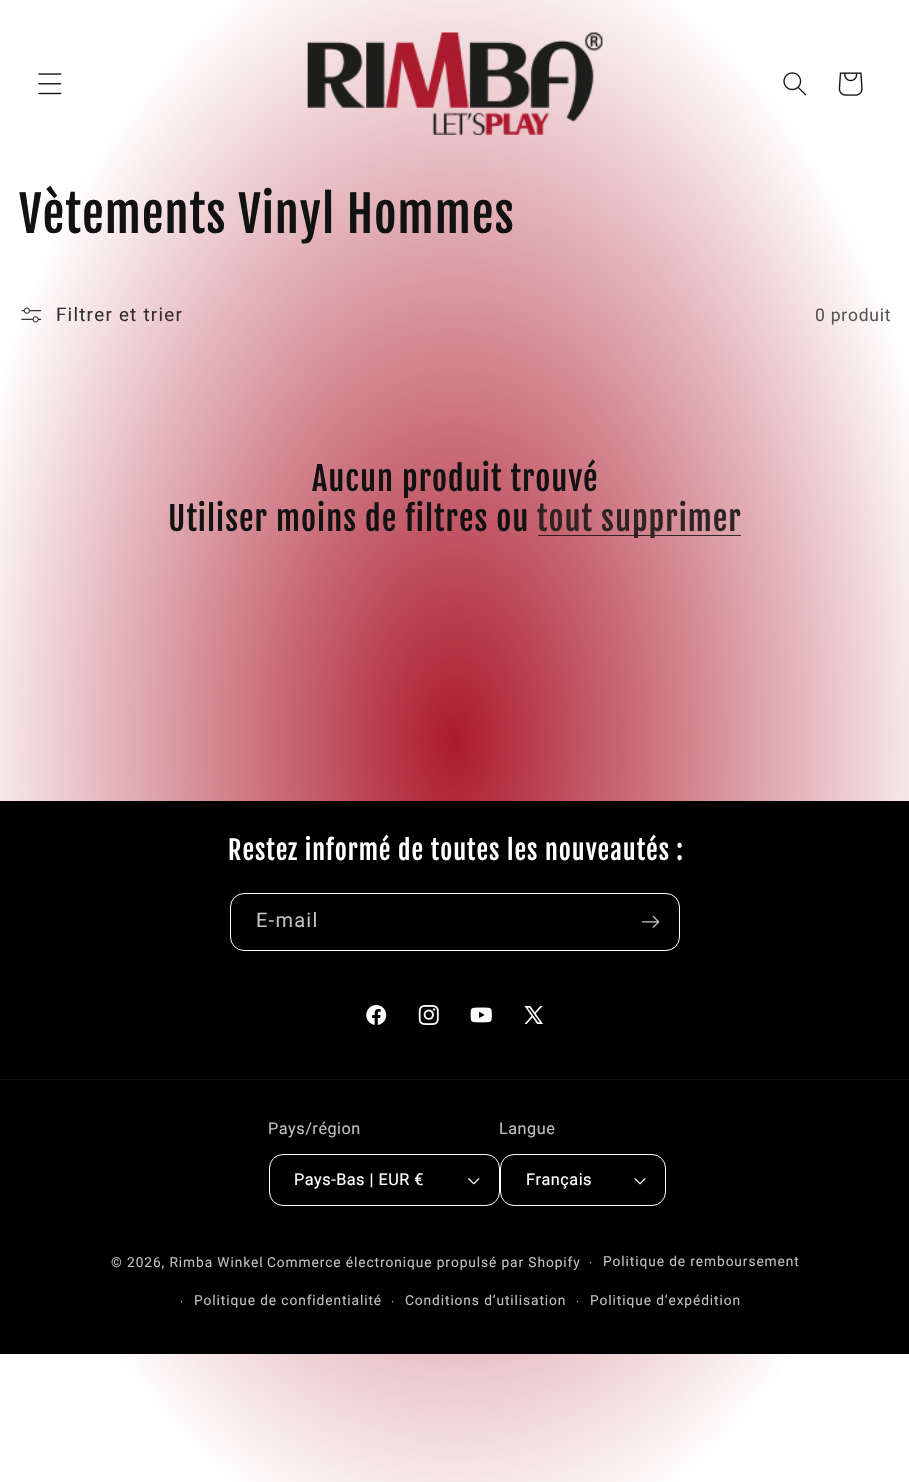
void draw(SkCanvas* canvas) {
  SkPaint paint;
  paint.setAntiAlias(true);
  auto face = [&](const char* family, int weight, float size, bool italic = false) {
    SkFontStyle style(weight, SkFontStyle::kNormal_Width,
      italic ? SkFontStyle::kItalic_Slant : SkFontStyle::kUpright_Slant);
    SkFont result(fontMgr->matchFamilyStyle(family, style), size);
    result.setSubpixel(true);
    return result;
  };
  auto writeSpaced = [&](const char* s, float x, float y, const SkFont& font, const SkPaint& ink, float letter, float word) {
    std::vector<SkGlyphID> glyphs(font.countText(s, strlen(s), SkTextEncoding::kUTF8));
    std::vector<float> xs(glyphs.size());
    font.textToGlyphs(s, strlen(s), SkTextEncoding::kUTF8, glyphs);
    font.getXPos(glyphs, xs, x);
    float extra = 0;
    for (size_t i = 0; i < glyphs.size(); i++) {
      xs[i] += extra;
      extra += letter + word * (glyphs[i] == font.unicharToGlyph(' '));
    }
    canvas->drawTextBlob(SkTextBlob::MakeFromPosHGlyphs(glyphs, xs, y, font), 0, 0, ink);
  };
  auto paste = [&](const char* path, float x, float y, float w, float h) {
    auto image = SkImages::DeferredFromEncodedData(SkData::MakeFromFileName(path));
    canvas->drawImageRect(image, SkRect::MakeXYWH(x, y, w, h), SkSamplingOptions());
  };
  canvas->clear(0xffffffff);
  {
    const SkColor colors[] = {0xffac1b2e, 0xffffffff, 0xffffffff};
    const float stops[] = {0, 0.79f, 0.97f};
    SkMatrix m = SkMatrix::Translate(455, 741).preScale(643, 1048);
    paint.setShader(SkGradientShader::MakeRadial({0, 0}, 1, colors, stops, 3, SkTileMode::kClamp, 0, &m));
    paint.setAlpha(255);
  }
  canvas->drawRect(SkRect::MakeXYWH(0, 276, 909, 1206), paint);
  {
    const SkColor colors[] = {0xff291316, 0xff363636, 0xff363636};
    const float stops[] = {0, 0.79f, 0.97f};
    SkMatrix m = SkMatrix::Translate(455, 741).preScale(643, 1048);
    paint.setShader(SkGradientShader::MakeRadial({0, 0}, 1, colors, stops, 3, SkTileMode::kClamp, 0, &m));
    paint.setAlpha(255);
  }
  canvas->drawRect(SkRect::MakeXYWH(538, 535, 203, 1), paint);
  {
    const SkColor colors[] = {0xffac1b2e, 0xffffffff, 0xffffffff};
    const float stops[] = {0, 0.79f, 0.97f};
    SkMatrix m = SkMatrix::Translate(455, 741).preScale(643, 1048);
    paint.setShader(SkGradientShader::MakeRadial({0, 0}, 1, colors, stops, 3, SkTileMode::kClamp, 0, &m));
    paint.setAlpha(255);
  }
  canvas->drawRect(SkRect::MakeXYWH(105, 0, 700, 154), paint);
  paste("img/1.png", 38, 73, 24, 22);
  paste("img/2.png", 307, 32, 296, 103);
  paste("img/3.png", 783, 72, 24, 24);
  paste("img/4.png", 838, 72, 25, 24);
  canvas->drawRect(SkRect::MakeXYWH(42, 154, 826, 122), paint);
  paste("img/5.png", 21, 307, 21, 16);
  paint.setShader(nullptr);
  paint.setColor(0xff000000);
  canvas->drawRect(SkRect::MakeXYWH(0, 801, 909, 553), paint);
  paint.setStroke(true);
  paint.setStrokeWidth(1);
  paint.setColor(0xffffffff);
  canvas->drawRoundRect(SkRect::MakeXYWH(230.5f, 893.5f, 449, 57), 13.5f, 13.5f, paint);
  paste("img/6.png", 642, 915, 18, 13);
  paste("img/7.png", 366, 1005, 21, 20);
  paste("img/8.png", 418, 1005, 21, 20);
  paste("img/9.png", 470, 1007, 22, 16);
  paste("img/10.png", 524, 1006, 19, 18);
  paint.setStroke(false);
  paint.setColor(0xff141414);
  canvas->drawRect(SkRect::MakeXYWH(0, 1079, 909, 1), paint);
  paste("img/11.png", 468, 1178, 12, 7);
  paint.setStroke(true);
  paint.setColor(0xffffffff);
  canvas->drawRoundRect(SkRect::MakeXYWH(269.5f, 1154.5f, 230, 51), 13.5f, 13.5f, paint);
  paste("img/12.png", 634, 1178, 12, 7);
  canvas->drawRoundRect(SkRect::MakeXYWH(500.5f, 1154.5f, 165, 51), 13.5f, 13.5f, paint);
  auto f0 = face("Fjalla One", 400, 48.75f);
  paint.setStroke(false);
  paint.setColor(0xff121212);
  writeSpaced("Vètements Vinyl Hommes", 19, 233, f0, paint, 1, 0);
  auto f1 = face("Roboto", 400, 18.75f);
  paint.setColor(0xff343031);
  writeSpaced("Filtrer et trier", 56, 321, f1, paint, 1.25f, 0);
  auto f2 = face("Roboto", 400, 17.5f);
  paint.setColor(0xff585555);
  writeSpaced("0 produit", 815, 321, f2, paint, 0.75f, 0);
  auto f3 = face("Fjalla One", 400, 32.5f);
  paint.setColor(0xff121212);
  writeSpaced("Aucun produit trouvé", 312, 491, f3, paint, 1, 0);
  writeSpaced("Utiliser moins de filtres ou", 168, 531, f3, paint, 1, 0);
  paint.setColor(0xff2f2324);
  writeSpaced("tout supprimer", 537, 531, f3, paint, 1, 0);
  auto f4 = face("Fjalla One", 400, 26);
  paint.setColor(0xffffffff);
  writeSpaced("Restez informé de toutes les nouveautés :", 228, 860, f4, paint, 1, 0);
  auto f5 = face("Roboto", 400, 20);
  paint.setColor(0xffbfbfbf);
  writeSpaced("E-mail", 256, 927, f5, paint, 1.25f, 0);
  auto f6 = face("Roboto", 400, 16.25f);
  writeSpaced("Pays/région", 268, 1134, f6, paint, 0.5f, 0);
  paint.setColor(0xffffffff);
  writeSpaced("Pays-Bas | EUR €", 294, 1185, f6, paint, 0.5f, 0);
  paint.setColor(0xffbfbfbf);
  writeSpaced("Langue", 499, 1134, f6, paint, 0.5f, 0);
  paint.setColor(0xffffffff);
  writeSpaced("Français", 526, 1185, f6, paint, 0.5f, 0);
  auto f7 = face("Roboto", 400, 12);
  paint.setColor(0xffbfbfbf);
  writeSpaced("·", 589, 1267, f7, paint, 0.9f, 0);
  auto f8 = face("Roboto", 400, 13.75f);
  writeSpaced("Politique de remboursement", 603, 1266, f8, paint, 0.9f, 0);
  writeSpaced("·", 180, 1306, f7, paint, 0.9f, 0);
  writeSpaced("Politique de confidentialité", 194, 1305, f8, paint, 0.9f, 0);
  writeSpaced("·", 391, 1306, f7, paint, 0.9f, 0);
  writeSpaced("Conditions d’utilisation", 405, 1305, f8, paint, 0.9f, 0);
  writeSpaced("·", 576, 1306, f7, paint, 0.9f, 0);
  {
    const struct { const char* s; float x, y; } items[] = {
      {"Politique d’expédition", 590, 1305},
      {"© 2026, Rimba Winkel", 111, 1267},
      {"Commerce électronique propulsé par Shopify", 267, 1267},
    };
    for (auto [s, x, y] : items) {
      writeSpaced(s, x, y, f8, paint, 0.9f, 0);
    }
  }
}
